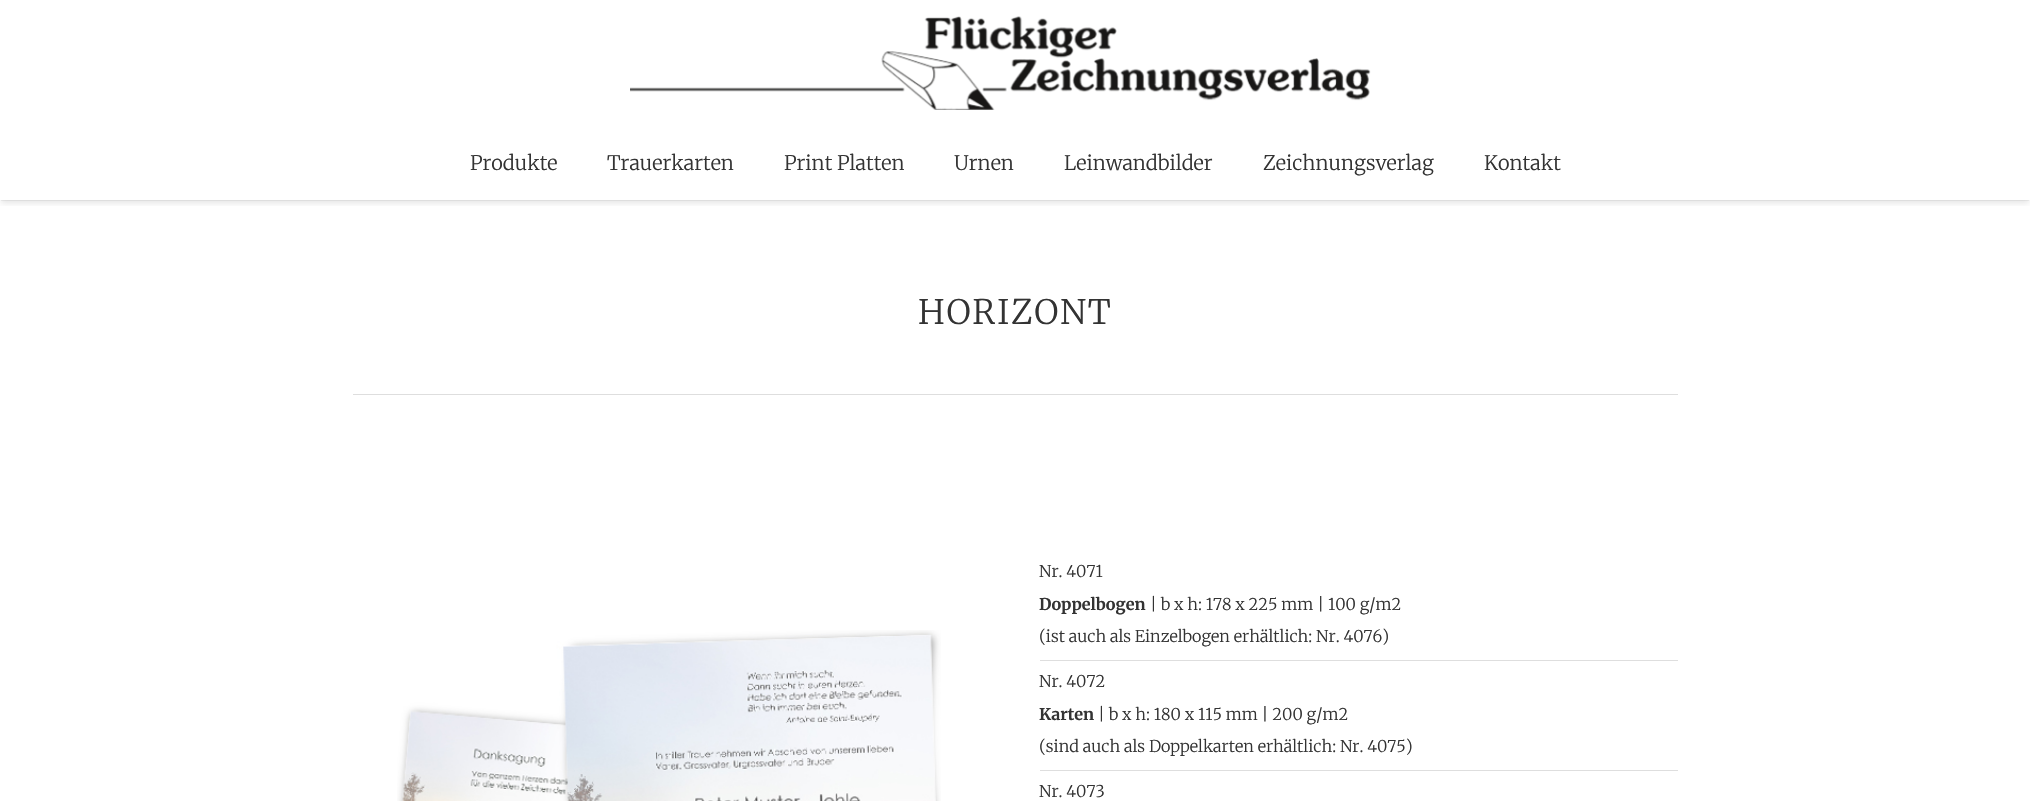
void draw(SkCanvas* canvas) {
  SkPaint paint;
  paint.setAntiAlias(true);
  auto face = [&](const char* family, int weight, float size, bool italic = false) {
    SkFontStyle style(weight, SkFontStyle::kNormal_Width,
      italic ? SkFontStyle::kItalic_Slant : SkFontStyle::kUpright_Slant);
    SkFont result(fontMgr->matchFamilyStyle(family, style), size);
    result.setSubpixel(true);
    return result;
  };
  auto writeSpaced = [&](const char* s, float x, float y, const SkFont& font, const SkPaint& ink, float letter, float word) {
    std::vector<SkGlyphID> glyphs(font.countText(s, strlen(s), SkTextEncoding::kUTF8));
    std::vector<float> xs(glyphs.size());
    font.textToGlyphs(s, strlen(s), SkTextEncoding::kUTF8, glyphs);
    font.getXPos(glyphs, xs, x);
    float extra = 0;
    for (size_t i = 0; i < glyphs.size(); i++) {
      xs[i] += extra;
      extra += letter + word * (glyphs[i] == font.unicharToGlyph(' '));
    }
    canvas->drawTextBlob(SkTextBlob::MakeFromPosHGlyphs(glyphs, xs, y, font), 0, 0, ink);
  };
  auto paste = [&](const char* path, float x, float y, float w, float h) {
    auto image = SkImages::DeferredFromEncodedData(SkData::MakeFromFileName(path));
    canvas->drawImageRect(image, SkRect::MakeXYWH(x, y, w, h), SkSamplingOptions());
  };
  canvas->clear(0xffffffff);
  paste("img/1.png", 630, 16, 741, 94);
  canvas->save();
  canvas->clipRect(SkRect::MakeXYWH(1, 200, 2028, 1));
  paint.setColor(0x0d000000);
  paint.setMaskFilter(SkMaskFilter::MakeBlur(kNormal_SkBlurStyle, 0.5f));
  canvas->drawRect(SkRect::MakeXYWH(1, 129, 2028, 72), paint);
  paint.setMaskFilter(nullptr);
  canvas->restore();
  canvas->save();
  canvas->clipRect(SkRect::MakeXYWH(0, 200, 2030, 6));
  paint.setColor(0x1a000000);
  paint.setMaskFilter(SkMaskFilter::MakeBlur(kNormal_SkBlurStyle, 3));
  canvas->drawRect(SkRect::MakeXYWH(1, 130, 2028, 73), paint);
  paint.setMaskFilter(nullptr);
  canvas->restore();
  paint.setColor(0xffdedede);
  canvas->drawRect(SkRect::MakeXYWH(353, 394, 1325, 1), paint);
  paste("img/2.png", 397, 630, 544, 171);
  canvas->drawRect(SkRect::MakeXYWH(1040, 660, 638, 1), paint);
  canvas->drawRect(SkRect::MakeXYWH(1040, 770, 638, 1), paint);
  auto f0 = face("Merriweather", 300, 20);
  paint.setColor(0xff333333);
  {
    const struct { const char* s; float x, y; } items[] = {
      {"Produkte", 470, 170},
      {"Trauerkarten", 607, 170},
      {"Print Platten", 784, 170},
      {"Urnen", 954, 170},
      {"Leinwandbilder", 1064, 170},
      {"Zeichnungsverlag", 1263, 170},
      {"Kontakt", 1484, 170},
    };
    for (auto [s, x, y] : items) {
      canvas->drawString(s, x, y, f0, paint);
    }
  }
  auto f1 = face("Merriweather", 300, 33.75f);
  writeSpaced("HORIZONT", 918, 324, f1, paint, 1.75f, 0);
  auto f2 = face("Merriweather", 300, 16.25f);
  canvas->drawString("Nr. 4071", 1039, 577, f2, paint);
  auto f3 = face("Merriweather", 700, 16.25f);
  canvas->drawString("Doppelbogen", 1039, 610, f3, paint);
  {
    const struct { const char* s; float x, y; } items[] = {
      {"| b x h: 178 x 225 mm | 100 g/m2", 1150, 610},
      {"(ist auch als Einzelbogen erhältlich: Nr. 4076)", 1039, 642},
      {"Nr. 4072", 1039, 687},
    };
    for (auto [s, x, y] : items) {
      canvas->drawString(s, x, y, f2, paint);
    }
  }
  canvas->drawString("Karten", 1039, 720, f3, paint);
  {
    const struct { const char* s; float x, y; } items[] = {
      {"| b x h: 180 x 115 mm | 200 g/m2", 1098, 720},
      {"(sind auch als Doppelkarten erhältlich: Nr. 4075)", 1039, 752},
      {"Nr. 4073", 1039, 797},
    };
    for (auto [s, x, y] : items) {
      canvas->drawString(s, x, y, f2, paint);
    }
  }
}
